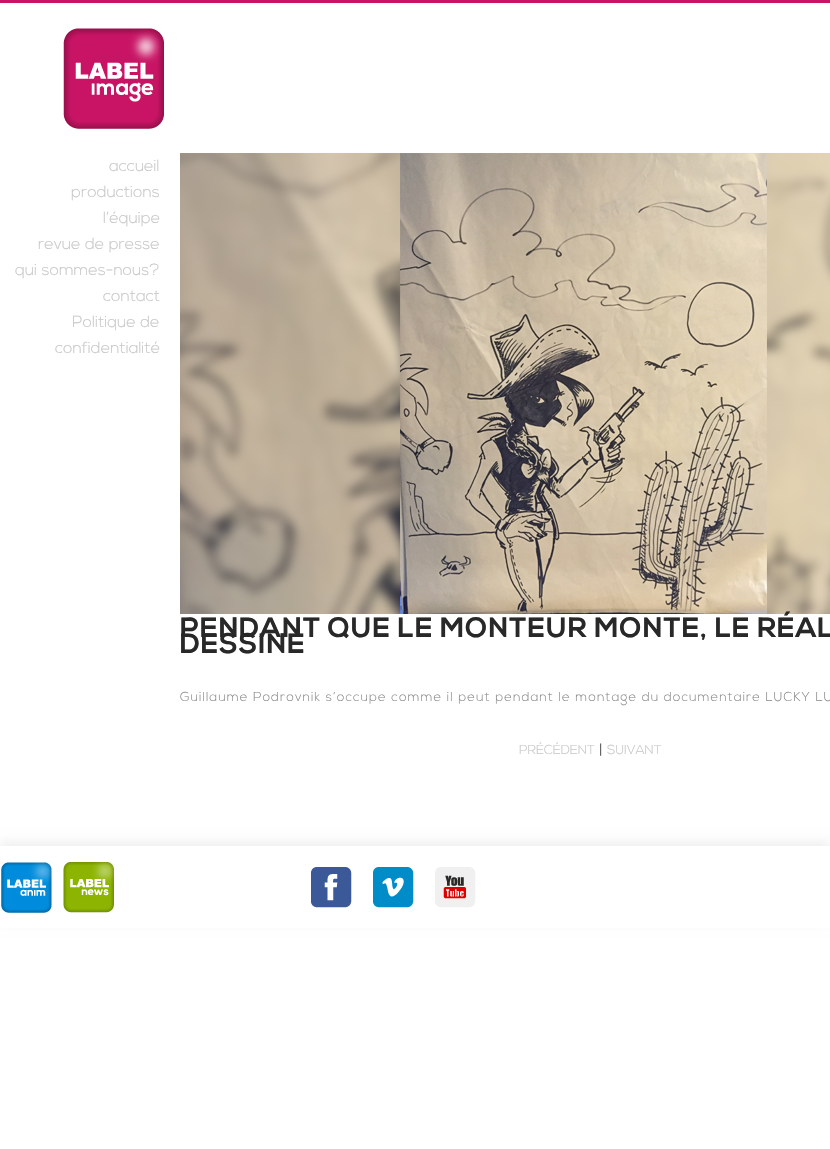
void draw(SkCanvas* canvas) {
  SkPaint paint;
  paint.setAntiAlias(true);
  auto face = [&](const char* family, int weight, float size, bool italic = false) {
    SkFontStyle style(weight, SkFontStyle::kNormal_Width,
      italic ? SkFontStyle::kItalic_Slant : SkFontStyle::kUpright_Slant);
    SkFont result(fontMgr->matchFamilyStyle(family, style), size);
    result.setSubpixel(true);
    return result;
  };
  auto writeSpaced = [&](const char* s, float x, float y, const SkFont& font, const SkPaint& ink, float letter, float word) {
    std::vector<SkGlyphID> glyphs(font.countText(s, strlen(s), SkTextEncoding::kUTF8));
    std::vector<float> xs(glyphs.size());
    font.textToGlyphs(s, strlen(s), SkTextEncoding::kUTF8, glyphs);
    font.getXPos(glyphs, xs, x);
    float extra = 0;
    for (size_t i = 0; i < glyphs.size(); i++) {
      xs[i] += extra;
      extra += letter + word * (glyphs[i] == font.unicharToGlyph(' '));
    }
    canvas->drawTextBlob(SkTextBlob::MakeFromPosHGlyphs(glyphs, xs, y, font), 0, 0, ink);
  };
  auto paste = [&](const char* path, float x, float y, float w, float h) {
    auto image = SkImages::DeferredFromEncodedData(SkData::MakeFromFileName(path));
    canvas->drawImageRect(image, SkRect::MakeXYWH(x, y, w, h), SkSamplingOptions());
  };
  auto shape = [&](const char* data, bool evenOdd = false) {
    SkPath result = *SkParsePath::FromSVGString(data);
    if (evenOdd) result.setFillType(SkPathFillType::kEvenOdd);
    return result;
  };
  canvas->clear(0xffffffff);
  paint.setColor(0xffc81464);
  canvas->drawRect(SkRect::MakeXYWH(0, 0, 830, 3), paint);
  paste("img/1.png", 63, 28, 101, 101);
  paste("img/2.png", 180, 153, 650, 461);
  canvas->save();
  canvas->clipPath(shape("M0 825H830V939H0ZM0 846H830V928H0Z", true), true);
  paint.setColor(0xfff0f0f0);
  paint.setMaskFilter(SkMaskFilter::MakeBlur(kNormal_SkBlurStyle, 5));
  canvas->drawRect(SkRect::MakeXYWH(0, 841, 830, 82), paint);
  paint.setMaskFilter(nullptr);
  canvas->restore();
  paste("img/3.png", 1, 862, 51, 51);
  paste("img/4.png", 63, 861, 51, 52);
  paste("img/5.png", 311, 867, 41, 41);
  paste("img/6.png", 371, 862, 43, 46);
  paste("img/7.png", 435, 867, 41, 41);
  auto f0 = face("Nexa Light", 300, 16);
  paint.setColor(0xffc8c8c8);
  {
    const struct { const char* s; float x, y; } items[] = {
      {"accueil", 109, 171},
      {"productions", 71, 197},
      {"l’équipe", 103, 223},
      {"revue de presse", 38, 249},
      {"qui sommes-nous?", 15, 275},
      {"contact", 103, 301},
      {"Politique de", 72, 327},
      {"confidentialité", 55, 353},
    };
    for (auto [s, x, y] : items) {
      canvas->drawString(s, x, y, f0, paint);
    }
  }
  auto f1 = face("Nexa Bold", 700, 28);
  paint.setColor(0xff282828);
  writeSpaced("PENDANT QUE LE MONTEUR MONTE, LE RÉAL", 180, 637, f1, paint, 1, 0);
  writeSpaced("DESSINE", 180, 653, f1, paint, 1, 0);
  auto f2 = face("Nexa Light", 300, 13);
  paint.setColor(0xff8c8c8c);
  writeSpaced("Guillaume Podrovnik s’occupe comme il peut pendant le montage du documentaire LUCKY LU", 180, 701, f2, paint, 1, 0);
  paint.setColor(0xffc8c8c8);
  canvas->drawString("PRÉCÉDENT", 519, 754, f2, paint);
  auto f3 = face("Nexa Light", 300, 15);
  paint.setColor(0xff373737);
  canvas->drawString("|", 599, 754, f3, paint);
  paint.setColor(0xffc8c8c8);
  canvas->drawString("SUIVANT", 607, 754, f2, paint);
}
